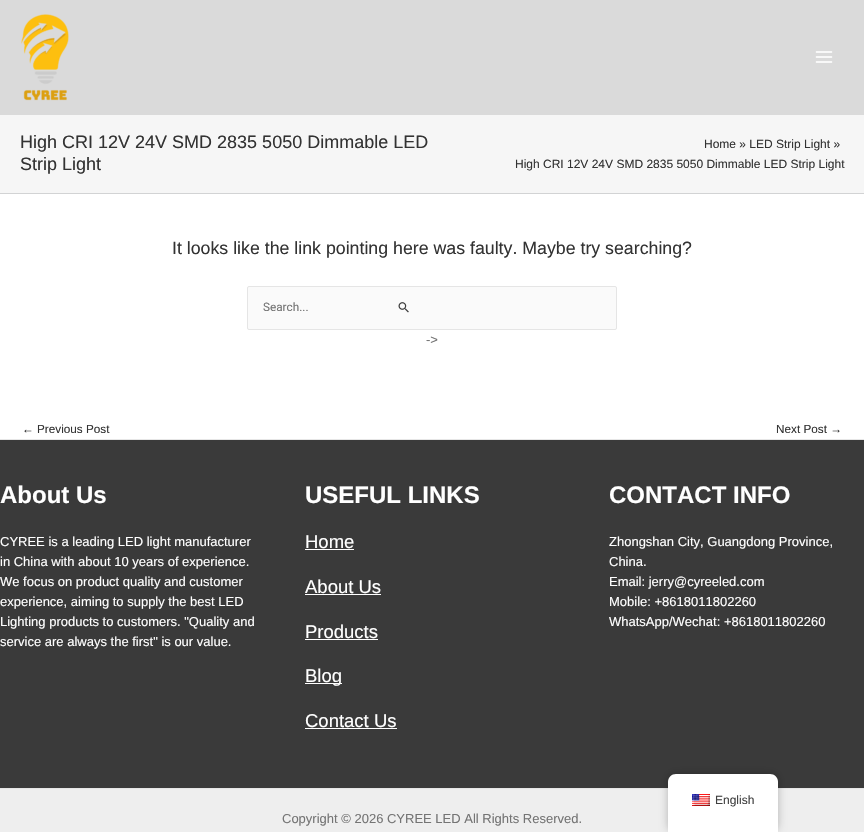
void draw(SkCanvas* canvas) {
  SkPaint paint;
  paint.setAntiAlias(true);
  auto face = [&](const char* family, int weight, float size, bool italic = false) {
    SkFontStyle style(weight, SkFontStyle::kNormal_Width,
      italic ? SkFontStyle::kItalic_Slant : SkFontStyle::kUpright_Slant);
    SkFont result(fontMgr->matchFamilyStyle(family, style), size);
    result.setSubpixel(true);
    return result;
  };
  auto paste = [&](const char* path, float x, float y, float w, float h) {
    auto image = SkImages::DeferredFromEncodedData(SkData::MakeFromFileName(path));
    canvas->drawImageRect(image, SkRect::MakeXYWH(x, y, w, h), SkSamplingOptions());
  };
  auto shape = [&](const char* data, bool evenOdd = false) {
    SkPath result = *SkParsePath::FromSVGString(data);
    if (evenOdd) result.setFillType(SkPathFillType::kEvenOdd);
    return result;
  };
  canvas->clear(0xffffffff);
  paint.setColor(0xffdadada);
  canvas->drawRect(SkRect::MakeXYWH(0, 0, 864, 115), paint);
  paste("img/1.png", 21, 14, 48, 87);
  paste("img/2.png", 815, 51, 18, 12);
  paint.setColor(0xfff6f6f6);
  canvas->drawRect(SkRect::MakeXYWH(0, 115, 864, 78), paint);
  paint.setColor(0xffd2d3d4);
  canvas->drawRect(SkRect::MakeXYWH(0, 193, 864, 1), paint);
  paint.setColor(0xfffafafa);
  canvas->drawRoundRect(SkRect::MakeXYWH(247.5f, 286.5f, 369, 43), 1.5f, 1.5f, paint);
  paint.setStroke(true);
  paint.setStrokeWidth(1);
  paint.setColor(0xffe5e5e5);
  canvas->drawRoundRect(SkRect::MakeXYWH(247.5f, 286.5f, 369, 43), 1.5f, 1.5f, paint);
  paste("img/3.png", 398, 302, 11, 11);
  paint.setStroke(false);
  {
    const struct { float x, y, w, h; SkColor color; } items[] = {
      {0, 440, 864, 348, 0xff3a3a3a},
      {0, 439, 864, 1, 0xffe6e6e6},
      {305, 549, 49, 1, 0xffffffff},
      {305, 594, 76, 1, 0xffffffff},
      {305, 639, 73, 1, 0xffffffff},
      {305, 683, 37, 1, 0xffffffff},
      {305, 728, 92, 1, 0xffffffff},
      {0, 789, 864, 43, 0xffeeeeee},
      {0, 788, 864, 1, 0xffe5e5e5},
    };
    for (auto [x, y, w, h, color] : items) {
      paint.setColor(color);
      canvas->drawRect(SkRect::MakeXYWH(x, y, w, h), paint);
    }
  }
  paint.setColor(0x40000000);
  paint.setMaskFilter(SkMaskFilter::MakeBlur(kNormal_SkBlurStyle, 4));
  canvas->drawRoundRect(SkRect::MakeXYWH(668, 774, 110, 58), 8, 8, paint);
  paint.setMaskFilter(nullptr);
  paint.setColor(0xffffffff);
  canvas->drawPath(shape("M676 774H770C774.5 774 778 777.5 778 782V832H668V782C668 777.5 671.5 774 676 774Z"), paint);
  paste("img/4.png", 692, 794, 18, 12);
  auto f0 = face("Liberation Sans", 400, 18);
  paint.setColor(0xff333333);
  canvas->drawString("High CRI 12V 24V SMD 2835 5050 Dimmable LED", 20, 148, f0, paint);
  canvas->drawString("Strip Light", 20, 170, f0, paint);
  auto f1 = face("Liberation Sans", 400, 12);
  canvas->drawString("Home » LED Strip Light »", 704, 148, f1, paint);
  canvas->drawString("High CRI 12V 24V SMD 2835 5050 Dimmable LED Strip Light", 515, 168, f1, paint);
  auto f2 = face("Liberation Sans", 400, 17.75f);
  canvas->drawString("It looks like the link pointing here was faulty. Maybe try searching?", 172, 254, f2, paint);
  auto f3 = face("Roboto", 400, 11.75f);
  paint.setColor(0xff747474);
  canvas->drawString("Search...", 263, 311, f3, paint);
  auto f4 = face("Liberation Sans", 400, 13);
  canvas->drawString("->", 426, 344, f4, paint);
  auto f5 = face("Liberation Sans", 400, 11.75f);
  paint.setColor(0xff333333);
  canvas->drawString("← Previous Post", 22, 433, f5, paint);
  canvas->drawString("Next Post →", 776, 433, f5, paint);
  auto f6 = face("Liberation Sans", 700, 24);
  paint.setColor(0xffffffff);
  canvas->drawString("About Us", 0, 503, f6, paint);
  {
    const struct { const char* s; float x, y; } items[] = {
      {"CYREE is a leading LED light manufacturer", 0, 546},
      {"in China with about 10 years of experience.", 0, 566},
      {"We focus on product quality and customer", 0, 586},
      {"experience, aiming to supply the best LED", 0, 606},
      {"Lighting products to customers. \"Quality and", 0, 626},
      {"service are always the first\" is our value.", 0, 646},
    };
    for (auto [s, x, y] : items) {
      canvas->drawString(s, x, y, f4, paint);
    }
  }
  canvas->drawString("USEFUL LINKS", 305, 503, f6, paint);
  auto f7 = face("Liberation Sans", 400, 18.5f);
  {
    const struct { const char* s; float x, y; } items[] = {
      {"Home", 305, 548},
      {"About Us", 305, 593},
      {"Products", 305, 638},
      {"Blog", 305, 682},
      {"Contact Us", 305, 727},
    };
    for (auto [s, x, y] : items) {
      canvas->drawString(s, x, y, f7, paint);
    }
  }
  canvas->drawString("CONTACT INFO", 609, 503, f6, paint);
  {
    const struct { const char* s; float x, y; } items[] = {
      {"Zhongshan City, Guangdong Province,", 609, 546},
      {"China.", 609, 566},
      {"Email: jerry@cyreeled.com", 609, 586},
      {"Mobile: +8618011802260", 609, 606},
      {"WhatsApp/Wechat: +8618011802260", 609, 626},
    };
    for (auto [s, x, y] : items) {
      canvas->drawString(s, x, y, f4, paint);
    }
  }
  paint.setColor(0xff747474);
  canvas->drawString("Copyright © 2026 CYREE LED All Rights Reserved.", 282, 823, f4, paint);
  paint.setColor(0xff404040);
  canvas->drawString("English", 715, 804, f1, paint);
}
